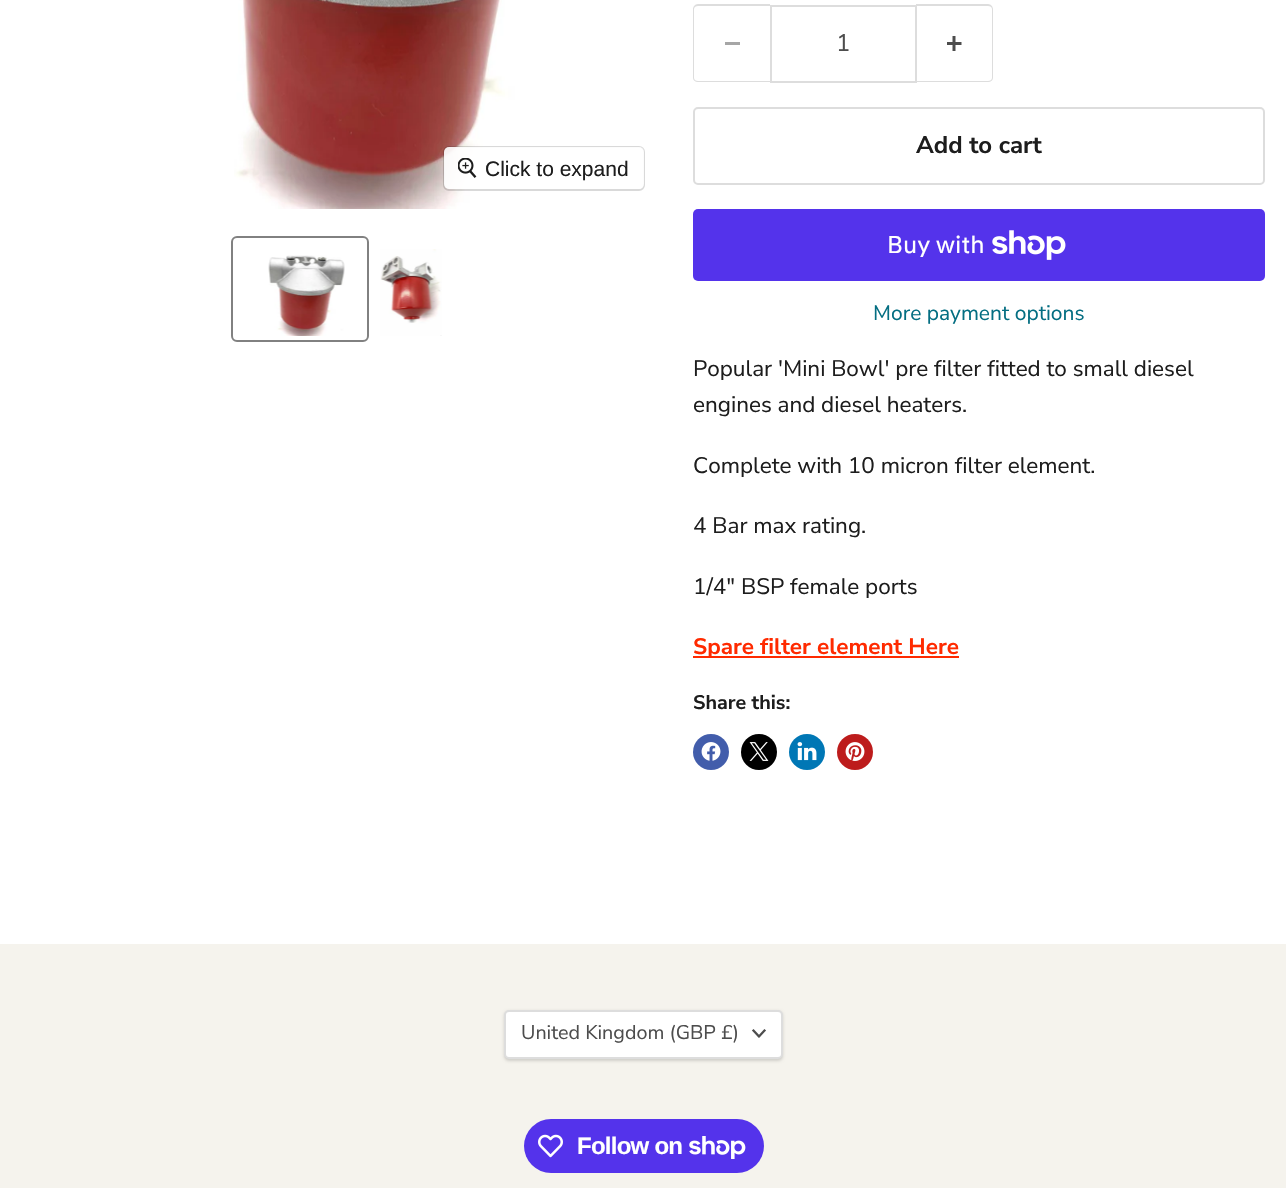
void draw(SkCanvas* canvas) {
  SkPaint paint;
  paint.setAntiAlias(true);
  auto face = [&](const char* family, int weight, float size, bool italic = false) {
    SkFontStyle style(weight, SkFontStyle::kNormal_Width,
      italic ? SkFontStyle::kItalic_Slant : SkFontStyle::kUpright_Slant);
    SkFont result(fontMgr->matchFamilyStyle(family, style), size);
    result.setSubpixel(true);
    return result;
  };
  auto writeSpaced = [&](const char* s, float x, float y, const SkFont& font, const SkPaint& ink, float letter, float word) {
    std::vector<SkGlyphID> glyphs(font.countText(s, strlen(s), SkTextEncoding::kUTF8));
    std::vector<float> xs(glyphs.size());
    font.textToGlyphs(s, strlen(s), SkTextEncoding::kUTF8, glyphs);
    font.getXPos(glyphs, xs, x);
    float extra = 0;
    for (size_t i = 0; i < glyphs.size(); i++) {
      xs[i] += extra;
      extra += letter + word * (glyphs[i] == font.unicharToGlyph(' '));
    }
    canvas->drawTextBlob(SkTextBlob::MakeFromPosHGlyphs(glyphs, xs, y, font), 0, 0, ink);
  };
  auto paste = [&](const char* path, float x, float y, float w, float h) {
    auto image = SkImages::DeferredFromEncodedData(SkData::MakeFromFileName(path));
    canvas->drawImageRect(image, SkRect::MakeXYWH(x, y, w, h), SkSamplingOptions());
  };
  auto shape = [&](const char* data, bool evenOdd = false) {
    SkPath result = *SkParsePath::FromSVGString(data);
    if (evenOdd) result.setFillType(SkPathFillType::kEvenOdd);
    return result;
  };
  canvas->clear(0xffffffff);
  paste("img/1.png", 234, 0, 323, 209);
  paint.setStroke(true);
  paint.setStrokeWidth(2);
  paint.setColor(0x26000000);
  canvas->drawRoundRect(SkRect::MakeXYWH(444, 147, 200, 43), 5, 5, paint);
  paint.setStroke(false);
  paint.setColor(0xe6ffffff);
  canvas->drawRoundRect(SkRect::MakeXYWH(444, 147, 200, 42), 5, 5, paint);
  paste("img/2.png", 458, 158, 19, 20);
  paint.setStroke(true);
  paint.setColor(0xff818181);
  canvas->drawRoundRect(SkRect::MakeXYWH(232, 237, 136, 104), 5, 5, paint);
  paste("img/3.png", 268, 255, 77, 81);
  paste("img/4.png", 380, 249, 62, 87);
  paint.setStroke(false);
  paint.setColor(0xffdddddd);
  canvas->drawPath(shape("M698 4H770V82H698C695 82 693 80 693 78V9C693 7 695 4 698 4ZM698 6H770V81H698C696 81 694 80 694 78V9C694 7 696 6 698 6Z", true), paint);
  paint.setColor(0xffa6a6a6);
  canvas->drawRect(SkRect::MakeXYWH(725, 42, 15, 3), paint);
  paint.setStroke(true);
  paint.setColor(0xffdddddd);
  canvas->drawRect(SkRect::MakeXYWH(771, 6, 145, 76), paint);
  paint.setStroke(false);
  canvas->drawPath(shape("M916 4H988C991 4 993 7 993 9V78C993 80 991 82 988 82H916ZM916 6H988C990 6 992 7 992 9V78C992 80 990 81 988 81H916Z", true), paint);
  paste("img/5.png", 947, 36, 15, 15);
  paint.setStroke(true);
  canvas->drawRoundRect(SkRect::MakeXYWH(694, 108, 570, 76), 4, 4, paint);
  paint.setStroke(false);
  paint.setColor(0xff5433eb);
  canvas->drawRoundRect(SkRect::MakeXYWH(693, 209, 572, 72), 5, 5, paint);
  paste("img/6.png", 992, 230, 74, 30);
  paint.setColor(0xffff2a00);
  canvas->drawRect(SkRect::MakeXYWH(693, 656, 266, 2), paint);
  paint.setColor(0xff425dab);
  canvas->drawCircle(711, 752, 18, paint);
  paste("img/7.png", 701, 742, 20, 19);
  paint.setColor(0xff000000);
  canvas->drawCircle(759, 752, 18, paint);
  paste("img/8.png", 749, 742, 20, 19);
  paint.setColor(0xff0077b5);
  canvas->drawCircle(807, 752, 18, paint);
  paste("img/9.png", 797, 742, 20, 19);
  paint.setColor(0xffbd1c1c);
  canvas->drawCircle(855, 752, 18, paint);
  paste("img/10.png", 845, 742, 20, 19);
  paint.setColor(0xfff5f3ed);
  canvas->drawRect(SkRect::MakeXYWH(0, 944, 1286, 244), paint);
  paint.setColor(0x26000000);
  paint.setMaskFilter(SkMaskFilter::MakeBlur(kNormal_SkBlurStyle, 1.5f));
  canvas->drawRoundRect(SkRect::MakeXYWH(504, 1011, 279, 50), 5, 5, paint);
  paint.setMaskFilter(nullptr);
  paint.setColor(0xffffffff);
  canvas->drawRoundRect(SkRect::MakeXYWH(505, 1011, 277, 47), 4, 4, paint);
  paint.setStroke(true);
  paint.setColor(0xffdddddd);
  canvas->drawRoundRect(SkRect::MakeXYWH(505, 1011, 277, 47), 4, 4, paint);
  paint.setStrokeWidth(2.3f);
  paint.setStrokeCap(SkPaint::kSquare_Cap);
  paint.setColor(0xff4d4d4d);
  canvas->drawPath(shape("M759 1036.5L764.5 1030.5M759 1036.5L753.5 1030.5"), paint);
  paint.setStroke(false);
  paint.setColor(0xff5433eb);
  canvas->drawRoundRect(SkRect::MakeXYWH(524, 1119, 240, 54), 27, 27, paint);
  paste("img/11.png", 538, 1134, 25, 24);
  paste("img/12.png", 689, 1136, 57, 23);
  auto f0 = face("Liberation Sans", 400, 21);
  paint.setColor(0xff1d1d1d);
  canvas->drawString("Click to expand", 485, 176, f0, paint);
  auto f1 = face("Nunito Sans", 400, 24);
  paint.setColor(0xff4d4d4d);
  canvas->drawString("1", 836, 51, f1, paint);
  auto f2 = face("Nunito Sans", 700, 24);
  paint.setColor(0xff1d1d1d);
  canvas->drawString("Add to cart", 916, 153, f2, paint);
  auto f3 = face("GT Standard", 400, 24);
  paint.setColor(0xffffffff);
  canvas->drawString("Buy with", 887, 253, f3, paint);
  auto f4 = face("Nunito Sans", 400, 21);
  paint.setColor(0xff046e82);
  canvas->drawString("More payment options", 873, 320, f4, paint);
  auto f5 = face("Nunito Sans", 400, 22.5f);
  paint.setColor(0xff1d1d1d);
  {
    const struct { const char* s; float x, y; } items[] = {
      {"Popular 'Mini Bowl' pre filter fitted to small diesel", 693, 376},
      {"engines and diesel heaters.", 693, 412},
      {"Complete with 10 micron filter element.", 693, 473},
      {"4 Bar max rating.", 693, 533},
      {"1/4\" BSP female ports", 693, 594},
    };
    for (auto [s, x, y] : items) {
      canvas->drawString(s, x, y, f5, paint);
    }
  }
  auto f6 = face("Nunito Sans", 700, 22.5f);
  paint.setColor(0xffff2a00);
  canvas->drawString("Spare filter element Here", 693, 654, f6, paint);
  auto f7 = face("Nunito Sans", 700, 19.75f);
  paint.setColor(0xff1d1d1d);
  canvas->drawString("Share this:", 693, 709, f7, paint);
  auto f8 = face("Nunito Sans", 400, 19.75f);
  paint.setColor(0xff4d4d4d);
  canvas->drawString("United Kingdom (GBP £)", 521, 1039, f8, paint);
  auto f9 = face("Liberation Sans", 700, 24);
  paint.setColor(0xffffffff);
  writeSpaced("Follow on", 577, 1154, f9, paint, -0.75f, 0);
}
